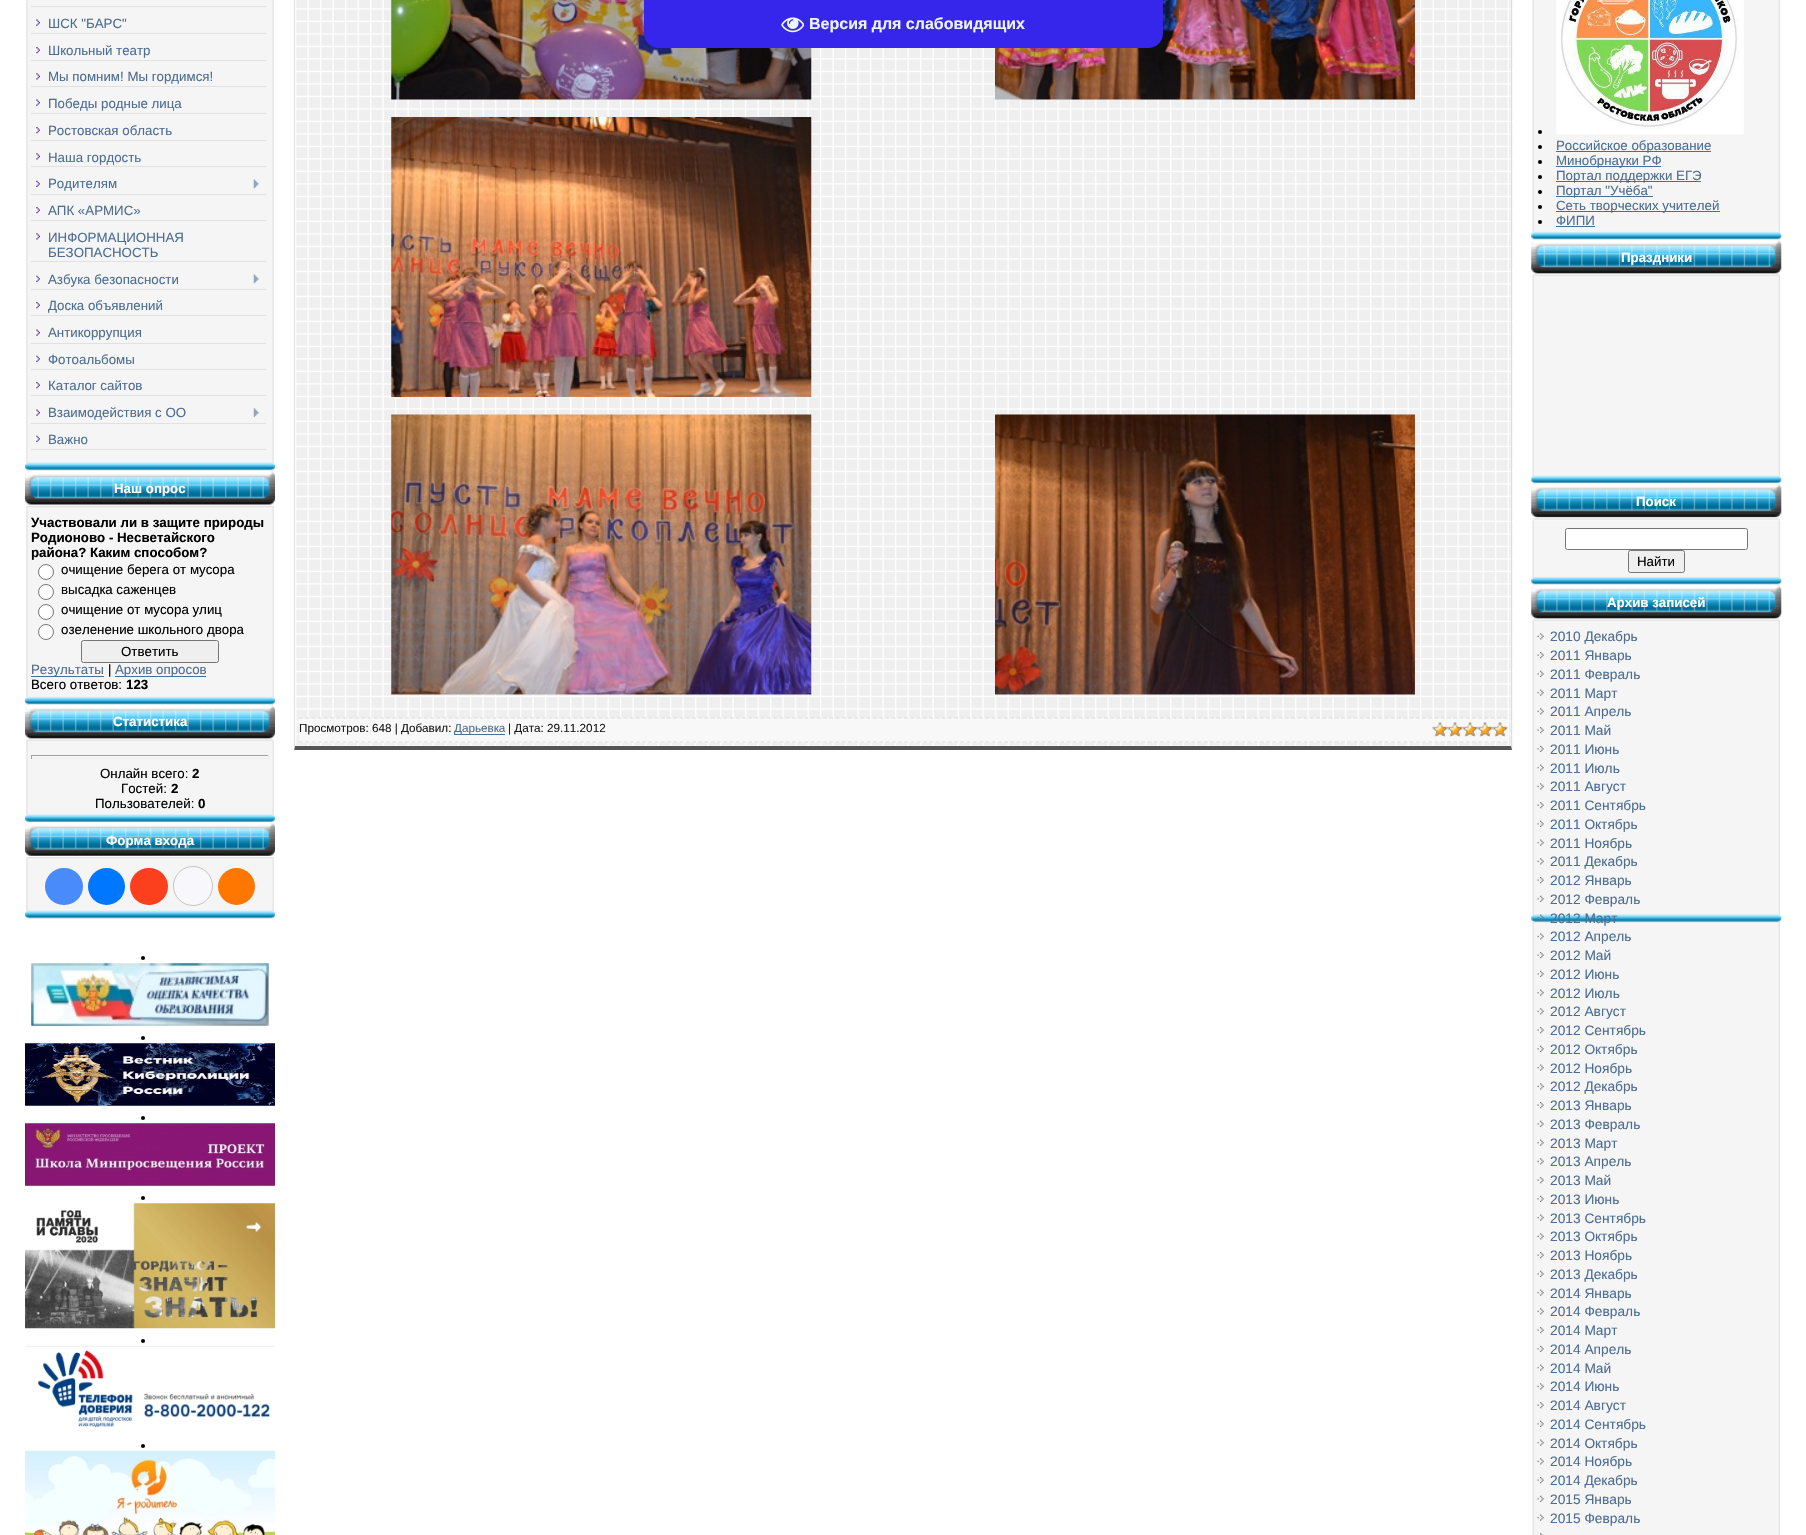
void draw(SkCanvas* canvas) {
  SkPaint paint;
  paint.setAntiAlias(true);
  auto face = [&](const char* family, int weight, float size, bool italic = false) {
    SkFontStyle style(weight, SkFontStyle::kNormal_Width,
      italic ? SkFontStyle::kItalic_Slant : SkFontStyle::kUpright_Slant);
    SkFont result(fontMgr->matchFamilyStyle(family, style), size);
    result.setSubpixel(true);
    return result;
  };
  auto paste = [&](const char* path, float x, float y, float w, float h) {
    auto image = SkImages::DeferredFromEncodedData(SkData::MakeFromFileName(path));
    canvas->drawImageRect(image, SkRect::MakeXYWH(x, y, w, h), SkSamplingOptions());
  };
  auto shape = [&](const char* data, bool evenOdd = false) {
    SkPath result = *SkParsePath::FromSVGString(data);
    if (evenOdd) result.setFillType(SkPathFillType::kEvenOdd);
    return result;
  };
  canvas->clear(0xffffffff);
  paste("img/22.png", 293, 0, 1220, 750);
  paste("img/23.png", 391, 0, 421, 100);
  paste("img/24.png", 995, 0, 420, 100);
  paint.setColor(0xff3626eb);
  canvas->drawPath(shape("M644 0H1163V33C1163 41.5 1156.5 48 1148 48H659C650.5 48 644 41.5 644 33Z"), paint);
  paste("img/1.png", 781, 17, 23, 16);
  paste("img/2.png", 25, 0, 250, 471);
  paint.setColor(0xffe1e1e1);
  canvas->drawRect(SkRect::MakeXYWH(31, 6, 235, 1), paint);
  paste("img/3.png", 35, 19, 5, 7);
  canvas->drawRect(SkRect::MakeXYWH(31, 33, 235, 1), paint);
  paste("img/4.png", 35, 47, 5, 7);
  canvas->drawRect(SkRect::MakeXYWH(31, 60, 235, 1), paint);
  paste("img/5.png", 35, 73, 5, 7);
  canvas->drawRect(SkRect::MakeXYWH(31, 86, 235, 1), paint);
  paste("img/3.png", 35, 99, 5, 7);
  canvas->drawRect(SkRect::MakeXYWH(31, 113, 235, 1), paint);
  paste("img/6.png", 35, 127, 5, 7);
  canvas->drawRect(SkRect::MakeXYWH(31, 140, 235, 1), paint);
  paste("img/5.png", 35, 153, 5, 7);
  canvas->drawRect(SkRect::MakeXYWH(31, 166, 235, 1), paint);
  paste("img/7.png", 35, 180, 5, 7);
  canvas->drawRect(SkRect::MakeXYWH(31, 194, 235, 1), paint);
  paste("img/8.png", 253, 179, 6, 10);
  paste("img/4.png", 35, 207, 5, 7);
  canvas->drawRect(SkRect::MakeXYWH(31, 220, 235, 1), paint);
  paste("img/5.png", 35, 233, 5, 7);
  canvas->drawRect(SkRect::MakeXYWH(31, 261, 235, 1), paint);
  paste("img/7.png", 35, 275, 5, 7);
  canvas->drawRect(SkRect::MakeXYWH(31, 289, 235, 1), paint);
  paste("img/8.png", 253, 274, 6, 10);
  paste("img/4.png", 35, 302, 5, 7);
  canvas->drawRect(SkRect::MakeXYWH(31, 315, 235, 1), paint);
  paste("img/3.png", 35, 329, 5, 7);
  canvas->drawRect(SkRect::MakeXYWH(31, 343, 235, 1), paint);
  paste("img/7.png", 35, 355, 5, 7);
  canvas->drawRect(SkRect::MakeXYWH(31, 369, 235, 1), paint);
  paste("img/4.png", 35, 382, 5, 7);
  canvas->drawRect(SkRect::MakeXYWH(31, 395, 235, 1), paint);
  paste("img/3.png", 35, 409, 5, 7);
  canvas->drawRect(SkRect::MakeXYWH(31, 423, 235, 1), paint);
  paste("img/9.png", 253, 408, 6, 9);
  paste("img/7.png", 35, 435, 5, 7);
  canvas->drawRect(SkRect::MakeXYWH(31, 449, 235, 1), paint);
  paste("img/10.png", 25, 470, 250, 39);
  paste("img/11.png", 25, 508, 250, 197);
  paint.setColor(0xffffffff);
  canvas->drawCircle(46, 572, 7.5f, paint);
  paint.setStroke(true);
  paint.setStrokeWidth(1);
  paint.setColor(0xff767676);
  canvas->drawCircle(46, 572, 7.5f, paint);
  paint.setStroke(false);
  paint.setColor(0xffffffff);
  canvas->drawCircle(46, 592, 7.5f, paint);
  paint.setStroke(true);
  paint.setColor(0xff767676);
  canvas->drawCircle(46, 592, 7.5f, paint);
  paint.setStroke(false);
  paint.setColor(0xffffffff);
  canvas->drawCircle(46, 612, 7.5f, paint);
  paint.setStroke(true);
  paint.setColor(0xff767676);
  canvas->drawCircle(46, 612, 7.5f, paint);
  paint.setStroke(false);
  paint.setColor(0xffffffff);
  canvas->drawCircle(46, 632, 7.5f, paint);
  paint.setStroke(true);
  paint.setColor(0xff767676);
  canvas->drawCircle(46, 632, 7.5f, paint);
  paint.setStroke(false);
  paint.setColor(0xffefefef);
  canvas->drawRoundRect(SkRect::MakeXYWH(81.5f, 640.5f, 137, 22), 2, 2, paint);
  paint.setStroke(true);
  paint.setColor(0xff767676);
  canvas->drawRoundRect(SkRect::MakeXYWH(81.5f, 640.5f, 137, 22), 2, 2, paint);
  paint.setStroke(false);
  paint.setColor(0xff4d6d91);
  canvas->drawRect(SkRect::MakeXYWH(31, 676, 73, 1), paint);
  canvas->drawRect(SkRect::MakeXYWH(115, 676, 91, 1), paint);
  paste("img/12.png", 25, 704, 250, 38);
  paste("img/13.png", 25, 742, 250, 80);
  {
    const struct { float x, y, w, h; SkColor color; } items[] = {
      {31, 755, 238, 1, 0xff9f9f9f},
      {268, 755, 1, 4, 0xffeeeeee},
      {31, 758, 238, 1, 0xffeeeeee},
      {31, 755, 1, 4, 0xff9f9f9f},
    };
    for (auto [x, y, w, h, color] : items) {
      paint.setColor(color);
      canvas->drawRect(SkRect::MakeXYWH(x, y, w, h), paint);
    }
  }
  paste("img/14.png", 25, 822, 250, 38);
  paste("img/15.png", 25, 859, 250, 60);
  paint.setColor(0xff498bfa);
  canvas->drawRoundRect(SkRect::MakeXYWH(45, 868, 38, 37), 18.5f, 18.5f, paint);
  paint.setColor(0xff0077ff);
  canvas->drawCircle(106.5f, 886.5f, 18.5f, paint);
  paint.setColor(0xfffc3f1d);
  canvas->drawRoundRect(SkRect::MakeXYWH(130, 868, 38, 37), 18.5f, 18.5f, paint);
  paint.setColor(0xfff8f8fc);
  canvas->drawCircle(193, 886, 19.5f, paint);
  paint.setStroke(true);
  paint.setColor(0xffc4c4c4);
  canvas->drawCircle(193, 886, 19.5f, paint);
  paint.setStroke(false);
  paint.setColor(0xffff7700);
  canvas->drawCircle(236.5f, 886.5f, 18.5f, paint);
  paint.setColor(0xff000000);
  canvas->drawCircle(143, 958, 2, paint);
  paste("img/16.png", 31, 963, 238, 63);
  canvas->drawCircle(143, 1038, 2, paint);
  paste("img/17.png", 25, 1043, 250, 63);
  canvas->drawCircle(143, 1118, 2, paint);
  paste("img/18.png", 25, 1123, 250, 63);
  canvas->drawCircle(143, 1198, 2, paint);
  paste("img/19.png", 25, 1203, 250, 126);
  canvas->drawCircle(143, 1341, 2, paint);
  paste("img/20.png", 25, 1345, 250, 83);
  canvas->drawCircle(143, 1446, 2, paint);
  paste("img/21.png", 25, 1450, 250, 85);
  paint.setColor(0xffdedfde);
  canvas->drawPath(shape("M1512-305V750L1511 746V-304Z"), paint);
  paint.setColor(0xff555555);
  canvas->drawPath(shape("M1512 750H294L295 746H1511Z"), paint);
  paint.setColor(0xffdedfde);
  canvas->drawPath(shape("M294 750V-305L295-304V746Z"), paint);
  paste("img/25.png", 391, 117, 421, 280);
  paste("img/26.png", 391, 414, 421, 281);
  paste("img/27.png", 995, 414, 420, 281);
  paint.setColor(0xfff8f8f8);
  canvas->drawRect(SkRect::MakeXYWH(299, 718, 1209, 25), paint);
  paint.setStroke(true);
  paint.setStrokeWidth(1.2f);
  paint.setColor(0xffdddddd);
  paint.setPathEffect(SkDashPathEffect::Make({{3.75f, 2.49f}}, 0));
  canvas->drawPath(shape("M299 718H1507.5"), paint);
  paint.setPathEffect(nullptr);
  paint.setPathEffect(SkDashPathEffect::Make({{3.75f, 2.49f}}, 0));
  canvas->drawPath(shape("M299 742H1507.5"), paint);
  paint.setPathEffect(nullptr);
  paint.setStroke(false);
  paint.setColor(0xff4d6d91);
  canvas->drawRect(SkRect::MakeXYWH(454, 734, 51, 1), paint);
  paste("img/28.png", 1432, 722, 76, 15);
  paste("img/29.png", 1432, 722, 76, 15);
  paste("img/30.png", 1531, 0, 251, 240);
  paint.setColor(0xff000000);
  canvas->drawCircle(1540, 132, 2, paint);
  paste("img/31.png", 1556, 0, 188, 135);
  canvas->drawCircle(1540, 147, 2, paint);
  paint.setColor(0xff4d6d91);
  canvas->drawRect(SkRect::MakeXYWH(1556, 151, 155, 1), paint);
  paint.setColor(0xff000000);
  canvas->drawCircle(1540, 162, 2, paint);
  paint.setColor(0xff4d6d91);
  canvas->drawRect(SkRect::MakeXYWH(1556, 166, 105, 1), paint);
  paint.setColor(0xff000000);
  canvas->drawCircle(1540, 177, 2, paint);
  paint.setColor(0xff4d6d91);
  canvas->drawRect(SkRect::MakeXYWH(1556, 181, 145, 1), paint);
  paint.setColor(0xff000000);
  canvas->drawCircle(1540, 192, 2, paint);
  paint.setColor(0xff4d6d91);
  canvas->drawRect(SkRect::MakeXYWH(1556, 196, 97, 1), paint);
  paint.setColor(0xff000000);
  canvas->drawCircle(1540, 207, 2, paint);
  paint.setColor(0xff4d6d91);
  canvas->drawRect(SkRect::MakeXYWH(1556, 211, 164, 1), paint);
  paint.setColor(0xff000000);
  canvas->drawCircle(1540, 222, 2, paint);
  paint.setColor(0xff4d6d91);
  canvas->drawRect(SkRect::MakeXYWH(1556, 226, 39, 1), paint);
  paste("img/32.png", 1531, 239, 251, 38);
  paste("img/33.png", 1531, 277, 251, 207);
  paste("img/34.png", 1531, 483, 251, 38);
  paste("img/35.png", 1531, 521, 251, 64);
  paint.setColor(0xffffffff);
  canvas->drawRoundRect(SkRect::MakeXYWH(1565.5f, 528.5f, 182, 21), 2, 2, paint);
  paint.setStroke(true);
  paint.setStrokeWidth(1);
  paint.setColor(0xff767676);
  canvas->drawRoundRect(SkRect::MakeXYWH(1565.5f, 528.5f, 182, 21), 2, 2, paint);
  paint.setStroke(false);
  paint.setColor(0xffefefef);
  canvas->drawRoundRect(SkRect::MakeXYWH(1628.5f, 550.5f, 56, 22), 2, 2, paint);
  paint.setStroke(true);
  paint.setColor(0xff767676);
  canvas->drawRoundRect(SkRect::MakeXYWH(1628.5f, 550.5f, 56, 22), 2, 2, paint);
  paste("img/32.png", 1531, 584, 251, 38);
  paste("img/36.png", 1531, 622, 251, 913);
  paste("img/37.png", 1537, 633, 7, 7);
  paste("img/38.png", 1537, 652, 7, 7);
  paste("img/39.png", 1537, 670, 7, 7);
  paste("img/40.png", 1537, 689, 7, 7);
  paste("img/37.png", 1537, 708, 7, 7);
  paste("img/38.png", 1537, 727, 7, 7);
  paste("img/39.png", 1537, 745, 7, 7);
  paste("img/40.png", 1537, 764, 7, 7);
  paste("img/37.png", 1537, 783, 7, 7);
  paste("img/38.png", 1537, 802, 7, 7);
  paste("img/39.png", 1537, 820, 7, 7);
  paste("img/40.png", 1537, 839, 7, 7);
  paste("img/37.png", 1537, 858, 7, 7);
  paste("img/38.png", 1537, 877, 7, 7);
  paste("img/39.png", 1537, 895, 7, 7);
  paste("img/41.png", 1537, 914, 7, 7);
  paste("img/37.png", 1537, 933, 7, 7);
  paste("img/38.png", 1537, 952, 7, 7);
  paste("img/39.png", 1537, 970, 7, 7);
  paste("img/40.png", 1537, 989, 7, 7);
  paste("img/37.png", 1537, 1008, 7, 7);
  paste("img/38.png", 1537, 1027, 7, 7);
  paste("img/39.png", 1537, 1045, 7, 7);
  paste("img/40.png", 1537, 1064, 7, 7);
  paste("img/37.png", 1537, 1083, 7, 7);
  paste("img/38.png", 1537, 1102, 7, 7);
  paste("img/39.png", 1537, 1120, 7, 7);
  paste("img/40.png", 1537, 1139, 7, 7);
  paste("img/37.png", 1537, 1158, 7, 7);
  paste("img/38.png", 1537, 1177, 7, 7);
  paste("img/39.png", 1537, 1195, 7, 7);
  paste("img/40.png", 1537, 1214, 7, 7);
  paste("img/37.png", 1537, 1233, 7, 7);
  paste("img/38.png", 1537, 1252, 7, 7);
  paste("img/39.png", 1537, 1270, 7, 7);
  paste("img/40.png", 1537, 1289, 7, 7);
  paste("img/37.png", 1537, 1308, 7, 7);
  paste("img/38.png", 1537, 1327, 7, 7);
  paste("img/39.png", 1537, 1345, 7, 7);
  paste("img/40.png", 1537, 1364, 7, 7);
  paste("img/37.png", 1537, 1383, 7, 7);
  paste("img/38.png", 1537, 1402, 7, 7);
  paste("img/39.png", 1537, 1420, 7, 7);
  paste("img/40.png", 1537, 1439, 7, 7);
  paste("img/37.png", 1537, 1458, 7, 7);
  paste("img/38.png", 1537, 1477, 7, 7);
  paste("img/39.png", 1537, 1495, 7, 7);
  paste("img/40.png", 1537, 1514, 7, 7);
  paste("img/42.png", 1539, 1533, 4, 2);
  auto f0 = face("Liberation Sans", 700, 16);
  paint.setStroke(false);
  paint.setColor(0xffedf5f4);
  canvas->drawString("Версия для слабовидящих", 809, 29, f0, paint);
  auto f1 = face("Liberation Sans", 400, 13.3f);
  paint.setColor(0xff4d6d91);
  {
    const struct { const char* s; float x, y; } items[] = {
      {"ШСК \"БАРС\"", 48, 28},
      {"Школьный театр", 48, 55},
      {"Мы помним! Мы гордимся!", 48, 81},
      {"Победы родные лица", 48, 108},
      {"Ростовская область", 48, 135},
      {"Наша гордость", 48, 162},
      {"Родителям", 48, 188},
      {"АПК «АРМИС»", 48, 215},
      {"ИНФОРМАЦИОННАЯ", 48, 242},
      {"БЕЗОПАСНОСТЬ", 48, 257},
      {"Азбука безопасности", 48, 284},
      {"Доска объявлений", 48, 310},
      {"Антикоррупция", 48, 337},
      {"Фотоальбомы", 48, 364},
      {"Каталог сайтов", 48, 390},
      {"Взаимодействия с ОО", 48, 417},
      {"Важно", 48, 444},
    };
    for (auto [s, x, y] : items) {
      canvas->drawString(s, x, y, f1, paint);
    }
  }
  auto f2 = face("Liberation Sans", 700, 13.3f);
  paint.setColor(0xffffffff);
  canvas->drawString("Наш опрос", 114, 493, f2, paint);
  paint.setColor(0xff000000);
  {
    const struct { const char* s; float x, y; } items[] = {
      {"Участвовали ли в защите природы", 31, 527},
      {"Родионово - Несветайского", 31, 542},
      {"района? Каким способом?", 31, 557},
    };
    for (auto [s, x, y] : items) {
      canvas->drawString(s, x, y, f2, paint);
    }
  }
  {
    const struct { const char* s; float x, y; } items[] = {
      {"очищение берега от мусора", 61, 574},
      {"высадка саженцев", 61, 594},
      {"очищение от мусора улиц", 61, 614},
      {"озеленение школьного двора", 61, 634},
      {"Ответить", 121, 656},
    };
    for (auto [s, x, y] : items) {
      canvas->drawString(s, x, y, f1, paint);
    }
  }
  paint.setColor(0xff4d6d91);
  canvas->drawString("Результаты", 31, 674, f1, paint);
  paint.setColor(0xff000000);
  canvas->drawString("|", 108, 674, f1, paint);
  paint.setColor(0xff4d6d91);
  canvas->drawString("Архив опросов", 115, 674, f1, paint);
  paint.setColor(0xff000000);
  canvas->drawString("Всего ответов:", 31, 689, f1, paint);
  canvas->drawString("123", 126, 689, f2, paint);
  paint.setColor(0xffffffff);
  canvas->drawString("Статистика", 113, 726, f2, paint);
  paint.setColor(0xff000000);
  canvas->drawString("Онлайн всего:", 100, 778, f1, paint);
  canvas->drawString("2", 192, 778, f2, paint);
  canvas->drawString("Гостей:", 121, 793, f1, paint);
  canvas->drawString("2", 171, 793, f2, paint);
  canvas->drawString("Пользователей:", 95, 808, f1, paint);
  canvas->drawString("0", 198, 808, f2, paint);
  paint.setColor(0xffffffff);
  canvas->drawString("Форма входа", 106, 845, f2, paint);
  auto f3 = face("Liberation Sans", 400, 11.7f);
  paint.setColor(0xff1a1a1a);
  canvas->drawString("Просмотров: 648 | Добавил:", 299, 732, f3, paint);
  paint.setColor(0xff4d6d91);
  canvas->drawString("Дарьевка", 454, 732, f3, paint);
  paint.setColor(0xff1a1a1a);
  canvas->drawString("| Дата: 29.11.2012", 508, 732, f3, paint);
  paint.setColor(0xff4d6d91);
  {
    const struct { const char* s; float x, y; } items[] = {
      {"Российское образование", 1556, 150},
      {"Минобрнауки РФ", 1556, 165},
      {"Портал поддержки ЕГЭ", 1556, 180},
      {"Портал \"Учёба\"", 1556, 195},
      {"Сеть творческих учителей", 1556, 210},
      {"ФИПИ", 1556, 225},
    };
    for (auto [s, x, y] : items) {
      canvas->drawString(s, x, y, f1, paint);
    }
  }
  paint.setColor(0xffffffff);
  canvas->drawString("Праздники", 1621, 262, f2, paint);
  canvas->drawString("Поиск", 1636, 506, f2, paint);
  paint.setColor(0xff000000);
  canvas->drawString("Найти", 1637, 566, f1, paint);
  paint.setColor(0xffffffff);
  canvas->drawString("Архив записей", 1607, 607, f2, paint);
  auto f4 = face("Liberation Sans", 400, 13.75f);
  paint.setColor(0xff4d6d91);
  {
    const struct { const char* s; float x, y; } items[] = {
      {"2010 Декабрь", 1550, 641},
      {"2011 Январь", 1550, 660},
      {"2011 Февраль", 1550, 679},
      {"2011 Март", 1550, 698},
      {"2011 Апрель", 1550, 716},
      {"2011 Май", 1550, 735},
      {"2011 Июнь", 1550, 754},
      {"2011 Июль", 1550, 773},
      {"2011 Август", 1550, 791},
      {"2011 Сентябрь", 1550, 810},
      {"2011 Октябрь", 1550, 829},
      {"2011 Ноябрь", 1550, 848},
      {"2011 Декабрь", 1550, 866},
      {"2012 Январь", 1550, 885},
      {"2012 Февраль", 1550, 904},
      {"2012 Март", 1550, 923},
      {"2012 Апрель", 1550, 941},
      {"2012 Май", 1550, 960},
      {"2012 Июнь", 1550, 979},
      {"2012 Июль", 1550, 998},
      {"2012 Август", 1550, 1016},
      {"2012 Сентябрь", 1550, 1035},
      {"2012 Октябрь", 1550, 1054},
      {"2012 Ноябрь", 1550, 1073},
      {"2012 Декабрь", 1550, 1091},
      {"2013 Январь", 1550, 1110},
      {"2013 Февраль", 1550, 1129},
      {"2013 Март", 1550, 1148},
      {"2013 Апрель", 1550, 1166},
      {"2013 Май", 1550, 1185},
      {"2013 Июнь", 1550, 1204},
      {"2013 Сентябрь", 1550, 1223},
      {"2013 Октябрь", 1550, 1241},
      {"2013 Ноябрь", 1550, 1260},
      {"2013 Декабрь", 1550, 1279},
      {"2014 Январь", 1550, 1298},
      {"2014 Февраль", 1550, 1316},
      {"2014 Март", 1550, 1335},
      {"2014 Апрель", 1550, 1354},
      {"2014 Май", 1550, 1373},
      {"2014 Июнь", 1550, 1391},
      {"2014 Август", 1550, 1410},
      {"2014 Сентябрь", 1550, 1429},
      {"2014 Октябрь", 1550, 1448},
      {"2014 Ноябрь", 1550, 1466},
      {"2014 Декабрь", 1550, 1485},
      {"2015 Январь", 1550, 1504},
      {"2015 Февраль", 1550, 1523},
    };
    for (auto [s, x, y] : items) {
      canvas->drawString(s, x, y, f4, paint);
    }
  }
}
